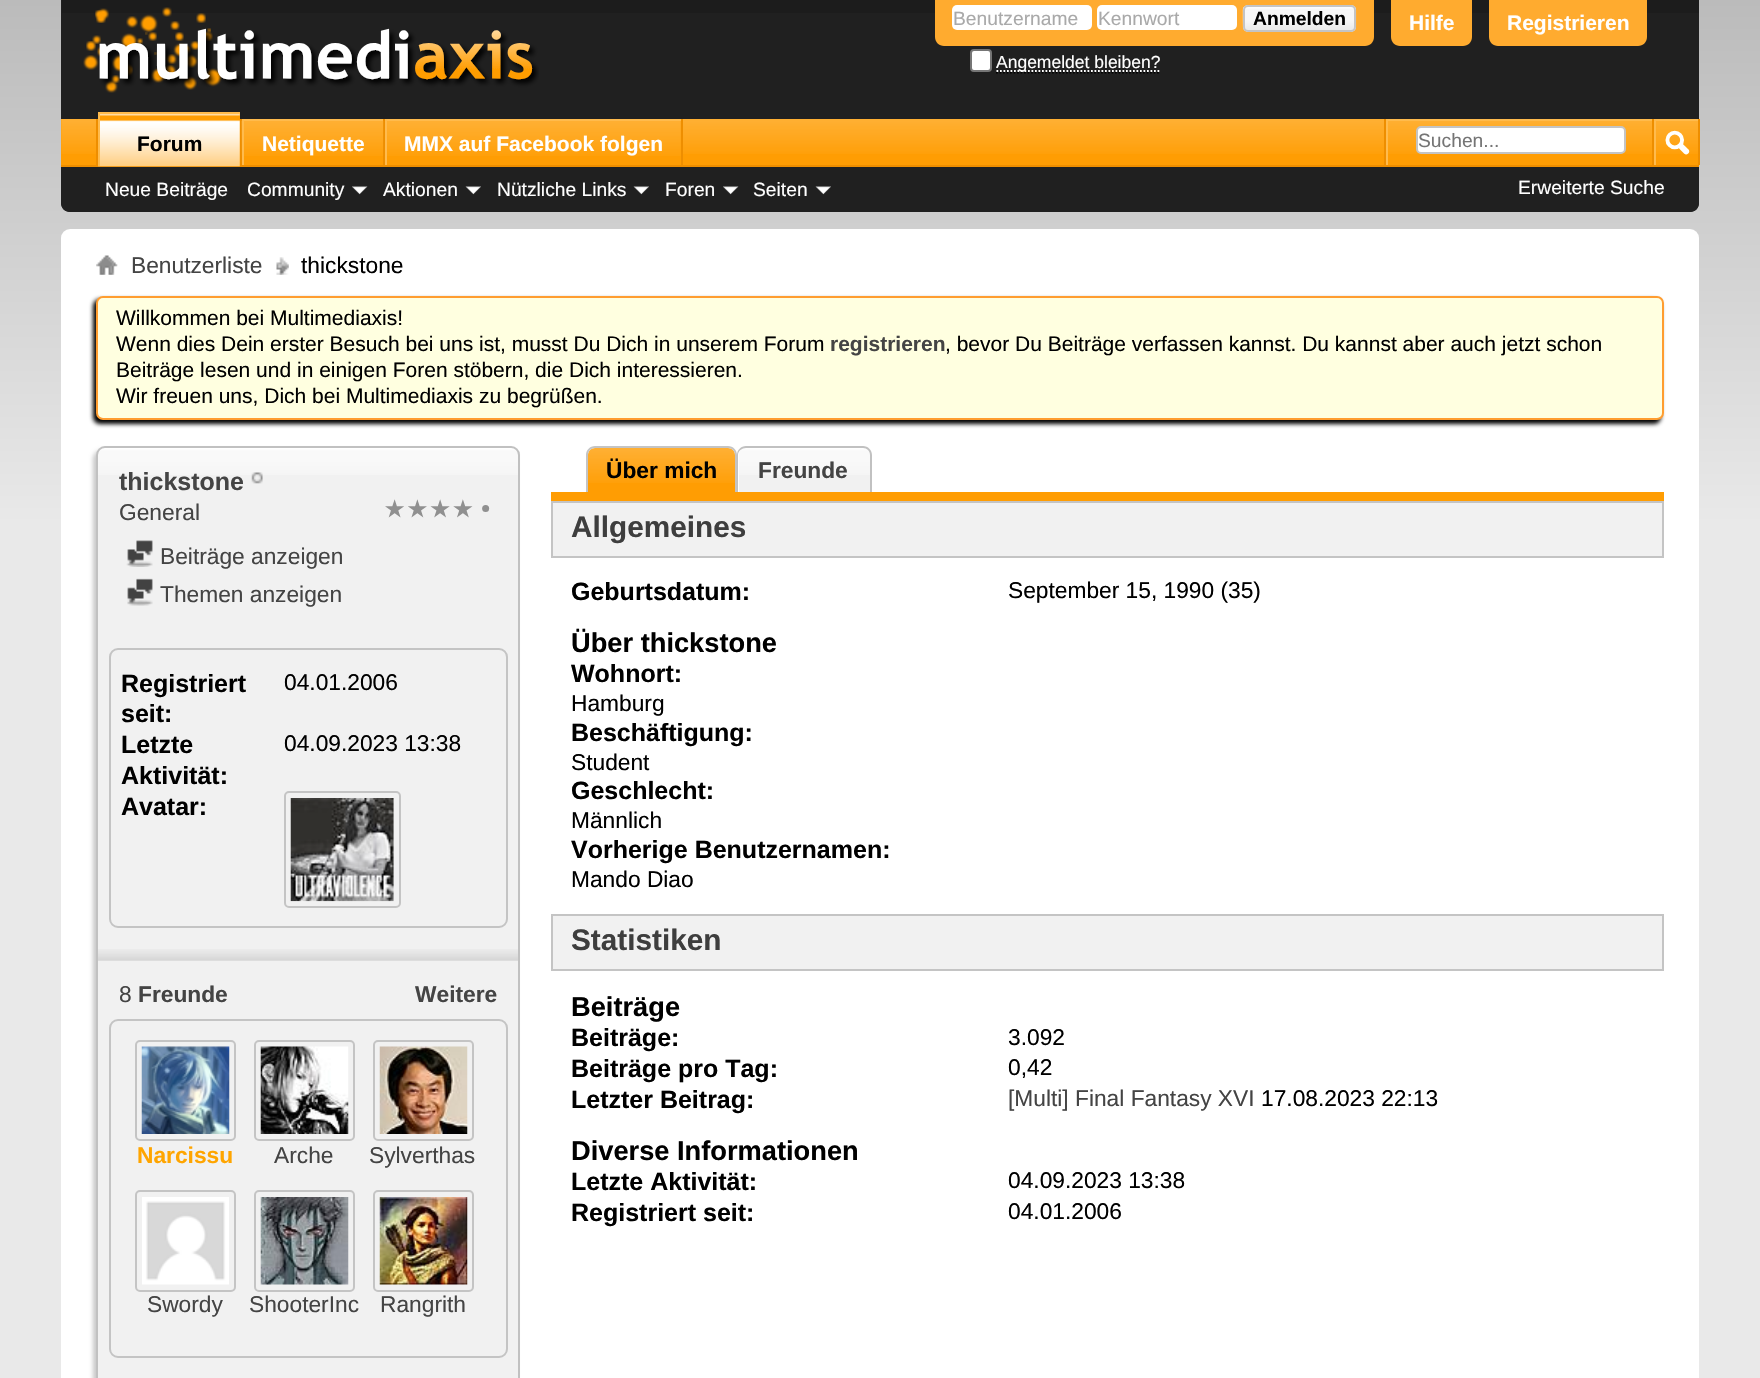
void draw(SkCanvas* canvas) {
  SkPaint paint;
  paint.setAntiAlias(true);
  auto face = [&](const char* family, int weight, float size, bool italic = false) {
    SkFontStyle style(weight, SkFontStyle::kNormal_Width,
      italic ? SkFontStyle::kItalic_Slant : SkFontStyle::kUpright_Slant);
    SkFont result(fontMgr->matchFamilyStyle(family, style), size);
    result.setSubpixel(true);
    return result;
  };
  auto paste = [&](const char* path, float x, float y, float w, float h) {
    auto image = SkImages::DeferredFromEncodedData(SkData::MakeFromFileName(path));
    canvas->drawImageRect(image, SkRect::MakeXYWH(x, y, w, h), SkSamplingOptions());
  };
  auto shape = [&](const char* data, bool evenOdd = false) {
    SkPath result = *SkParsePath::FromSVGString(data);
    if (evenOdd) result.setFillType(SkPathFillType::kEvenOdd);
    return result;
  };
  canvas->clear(0xffffffff);
  {
    const SkColor colors[] = {0xffbbbbbb, 0xffe9e9e9};
    const float stops[] = {0, 1};
    const SkPoint ends[] = {{0, 0}, {0, 525}};
    paint.setShader(SkGradientShader::MakeLinear(ends, colors, stops, 2, SkTileMode::kClamp));
    paint.setAlpha(255);
  }
  canvas->drawRect(SkRect::MakeXYWH(0, 0, 1760, 1378), paint);
  paint.setShader(nullptr);
  paint.setColor(0xff202020);
  canvas->drawPath(shape("M61 0H1699V203C1699 208 1695 212 1690 212H70C65 212 61 208 61 203Z"), paint);
  paste("img/1.png", 62, 0, 1637, 13);
  paste("img/2.png", 83, 7, 456, 86);
  paint.setColor(0xffffab2f);
  canvas->drawPath(shape("M935 0H1374V37C1374 42 1370 46 1365 46H944C939 46 935 42 935 37Z"), paint);
  paint.setColor(0xffffffff);
  canvas->drawRoundRect(SkRect::MakeXYWH(952, 5, 140, 25), 5, 5, paint);
  canvas->drawRoundRect(SkRect::MakeXYWH(1097, 5, 140, 25), 5, 5, paint);
  paint.setColor(0xffe9e9e9);
  canvas->drawRoundRect(SkRect::MakeXYWH(1243, 5, 113, 27), 5, 5, paint);
  paste("img/3.png", 1242, 7, 115, 23);
  paint.setStroke(true);
  paint.setStrokeWidth(2);
  paint.setColor(0xffc4c4c4);
  canvas->drawRoundRect(SkRect::MakeXYWH(1244, 6, 111, 25), 4, 4, paint);
  paint.setStroke(false);
  paint.setColor(0xffffffff);
  canvas->drawRoundRect(SkRect::MakeXYWH(971, 50, 20, 21), 3, 3, paint);
  paint.setStroke(true);
  paint.setColor(0xff767676);
  canvas->drawRoundRect(SkRect::MakeXYWH(971, 50, 20, 21), 3, 3, paint);
  paint.setStrokeWidth(1.8f);
  paint.setColor(0xff000000);
  paint.setPathEffect(SkDashPathEffect::Make({{1.75f, 1.75f}}, 0));
  canvas->drawPath(shape("M996 72.5H1160"), paint);
  paint.setPathEffect(nullptr);
  paint.setColor(0xffffffff);
  paint.setPathEffect(SkDashPathEffect::Make({{1.75f, 1.75f}}, 0));
  canvas->drawPath(shape("M996.5 71H1161"), paint);
  paint.setPathEffect(nullptr);
  paint.setStroke(false);
  paint.setColor(0xffffab2f);
  canvas->drawPath(shape("M1391 0H1472V37C1472 42 1468 46 1463 46H1400C1395 46 1391 42 1391 37Z"), paint);
  canvas->drawPath(shape("M1489 0H1647V37C1647 42 1643 46 1638 46H1498C1493 46 1489 42 1489 37Z"), paint);
  paint.setColor(0xff202020);
  canvas->drawPath(shape("M61 119H1699V203C1699 208 1695 212 1690 212H70C65 212 61 208 61 203Z"), paint);
  paint.setColor(0xffff9d03);
  canvas->drawRect(SkRect::MakeXYWH(61, 119, 1637, 46), paint);
  paste("img/4.png", 61, 119, 1637, 35);
  {
    const struct { float x, y, w, h; SkColor color; } items[] = {
      {240, 119, 2, 46, 0xffee8e00},
      {96, 119, 2, 46, 0xffee8e00},
      {383, 119, 2, 47, 0xffee8e00},
      {244, 121, 139, 33, 0xffff9d03},
    };
    for (auto [x, y, w, h, color] : items) {
      paint.setColor(color);
      canvas->drawRect(SkRect::MakeXYWH(x, y, w, h), paint);
    }
  }
  paste("img/6.png", 241, 120, 143, 36);
  {
    const struct { float x, y, w, h; SkColor color; } items[] = {
      {242, 119, 141, 2, 0xffffbb4d},
      {242, 119, 2, 47, 0xffffbb4d},
      {681, 119, 2, 47, 0xffee8e00},
      {385, 119, 296, 2, 0xffffbb4d},
      {385, 119, 2, 47, 0xffffbb4d},
      {61, 165, 1638, 2, 0xffee8e00},
      {100, 114, 140, 52, 0xffff9d03},
    };
    for (auto [x, y, w, h, color] : items) {
      paint.setColor(color);
      canvas->drawRect(SkRect::MakeXYWH(x, y, w, h), paint);
    }
  }
  paste("img/5.png", 98, 114, 142, 53);
  {
    const struct { float x, y, w, h; SkColor color; } items[] = {
      {98, 112, 142, 2, 0xffffbb4d},
      {98, 112, 2, 54, 0xffffbb4d},
      {387, 121, 294, 33, 0xffff9d03},
    };
    for (auto [x, y, w, h, color] : items) {
      paint.setColor(color);
      canvas->drawRect(SkRect::MakeXYWH(x, y, w, h), paint);
    }
  }
  paste("img/7.png", 387, 121, 294, 35);
  paste("img/8.png", 352, 186, 16, 9);
  paste("img/9.png", 465, 186, 16, 9);
  paste("img/9.png", 633, 186, 16, 9);
  paste("img/8.png", 723, 186, 16, 9);
  paste("img/9.png", 815, 186, 16, 9);
  {
    const struct { float x, y, w, h; SkColor color; } items[] = {
      {1384, 119, 2, 46, 0xffee8e00},
      {1386, 119, 266, 2, 0xffffbb4d},
      {1386, 119, 2, 46, 0xffffbb4d},
    };
    for (auto [x, y, w, h, color] : items) {
      paint.setColor(color);
      canvas->drawRect(SkRect::MakeXYWH(x, y, w, h), paint);
    }
  }
  paint.setColor(0xffffffff);
  canvas->drawRoundRect(SkRect::MakeXYWH(1417, 127, 208, 26), 4, 4, paint);
  paint.setStroke(true);
  paint.setStrokeWidth(2);
  paint.setColor(0xffc4c4c4);
  canvas->drawRoundRect(SkRect::MakeXYWH(1417, 127, 208, 26), 4, 4, paint);
  paint.setStroke(false);
  {
    const struct { float x, y, w, h; SkColor color; } items[] = {
      {1698, 119, 2, 46, 0xffee8e00},
      {1652, 119, 2, 46, 0xffee8e00},
      {1654, 119, 44, 2, 0xffffbb4d},
      {1654, 119, 2, 46, 0xffffbb4d},
    };
    for (auto [x, y, w, h, color] : items) {
      paint.setColor(color);
      canvas->drawRect(SkRect::MakeXYWH(x, y, w, h), paint);
    }
  }
  paste("img/10.png", 1665, 130, 25, 25);
  paint.setColor(0xffffffff);
  canvas->drawRoundRect(SkRect::MakeXYWH(61, 229, 1638, 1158), 9, 9, paint);
  paste("img/11.png", 96, 255, 22, 20);
  paste("img/12.png", 276, 257, 13, 18);
  paint.setColor(0xff000000);
  paint.setMaskFilter(SkMaskFilter::MakeBlur(kNormal_SkBlurStyle, 2));
  canvas->drawRoundRect(SkRect::MakeXYWH(93, 299, 1568, 125), 7, 7, paint);
  paint.setMaskFilter(nullptr);
  paint.setColor(0xffffffe0);
  canvas->drawRoundRect(SkRect::MakeXYWH(97, 297, 1566, 122), 6, 6, paint);
  paint.setStroke(true);
  paint.setColor(0xffff9d30);
  canvas->drawRoundRect(SkRect::MakeXYWH(97, 297, 1566, 122), 6, 6, paint);
  paint.setStroke(false);
  paint.setColor(0xffc8c8c8);
  paint.setMaskFilter(SkMaskFilter::MakeBlur(kNormal_SkBlurStyle, 2));
  canvas->drawRoundRect(SkRect::MakeXYWH(93, 450, 423, 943), 9, 9, paint);
  paint.setMaskFilter(nullptr);
  paint.setColor(0xfff1f1f1);
  canvas->drawRoundRect(SkRect::MakeXYWH(96, 446, 424, 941), 9, 9, paint);
  paste("img/13.png", 96, 448, 424, 27);
  paint.setStroke(true);
  paint.setColor(0xffc1c1c1);
  canvas->drawRoundRect(SkRect::MakeXYWH(97, 447, 422, 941), 8, 8, paint);
  paste("img/14.png", 251, 472, 12, 12);
  paste("img/15.png", 385, 499, 105, 19);
  paste("img/16.png", 126, 540, 27, 27);
  paste("img/17.png", 127, 578, 26, 28);
  paint.setColor(0xffc4c4c4);
  canvas->drawRoundRect(SkRect::MakeXYWH(110, 649, 397, 278), 8, 8, paint);
  canvas->drawRoundRect(SkRect::MakeXYWH(285, 792, 115, 115), 4, 4, paint);
  paste("img/18.png", 290, 798, 104, 104);
  paste("img/19.png", 98, 949, 420, 12);
  canvas->drawRoundRect(SkRect::MakeXYWH(110, 1020, 397, 337), 8, 8, paint);
  canvas->drawRoundRect(SkRect::MakeXYWH(136, 1041, 99, 99), 4, 4, paint);
  paste("img/20.png", 141, 1046, 89, 88);
  canvas->drawRoundRect(SkRect::MakeXYWH(255, 1041, 99, 99), 4, 4, paint);
  paste("img/21.png", 260, 1046, 89, 88);
  canvas->drawRoundRect(SkRect::MakeXYWH(374, 1041, 99, 99), 4, 4, paint);
  paste("img/22.png", 379, 1046, 89, 88);
  canvas->drawRoundRect(SkRect::MakeXYWH(136, 1191, 99, 100), 4, 4, paint);
  paste("img/23.png", 142, 1197, 87, 88);
  canvas->drawRoundRect(SkRect::MakeXYWH(255, 1191, 99, 100), 4, 4, paint);
  paste("img/24.png", 260, 1197, 89, 88);
  canvas->drawRoundRect(SkRect::MakeXYWH(374, 1191, 99, 100), 4, 4, paint);
  paste("img/25.png", 379, 1197, 89, 88);
  paint.setStroke(false);
  paint.setColor(0xffff9d03);
  canvas->drawPath(shape("M595 448H728C732 448 735 451 735 455V492H588V455C588 451 591 448 595 448Z"), paint);
  paste("img/26.png", 588, 448, 147, 35);
  paint.setColor(0xffc4c4c4);
  canvas->drawPath(shape("M595 446H728C733 446 737 450 737 455V492H586V455C586 450 590 446 595 446ZM595 448H728C732 448 735 451 735 455V492H588V455C588 451 591 448 595 448Z", true), paint);
  paint.setColor(0xfff1f1f1);
  canvas->drawPath(shape("M746 448H863C867 448 870 451 870 455V492H739V455C739 451 742 448 746 448Z"), paint);
  paste("img/27.png", 739, 448, 131, 27);
  paint.setColor(0xffc1c1c1);
  canvas->drawPath(shape("M746 446H863C868 446 872 450 872 455V492H737V455C737 450 741 446 746 446ZM746 448H863C867 448 870 451 870 455V492H738V455C738 451 742 448 746 448Z", true), paint);
  paint.setColor(0xffff9d03);
  canvas->drawRect(SkRect::MakeXYWH(551, 492, 1113, 9), paint);
  paint.setColor(0xfff1f1f1);
  canvas->drawRect(SkRect::MakeXYWH(552, 502, 1111, 55), paint);
  paint.setStroke(true);
  paint.setColor(0xffc4c4c4);
  canvas->drawRect(SkRect::MakeXYWH(552, 502, 1111, 55), paint);
  paint.setStroke(false);
  paint.setColor(0xfff1f1f1);
  canvas->drawRect(SkRect::MakeXYWH(552, 915, 1111, 55), paint);
  paint.setStroke(true);
  paint.setColor(0xffc4c4c4);
  canvas->drawRect(SkRect::MakeXYWH(552, 915, 1111, 55), paint);
  auto f0 = face("Liberation Sans", 400, 19.25f);
  paint.setStroke(false);
  paint.setColor(0xffa9a9a9);
  canvas->drawString("Benutzername", 953, 25, f0, paint);
  canvas->drawString("Kennwort", 1098, 25, f0, paint);
  auto f1 = face("Liberation Sans", 700, 19.25f);
  paint.setColor(0xff000000);
  canvas->drawString("Anmelden", 1253, 25, f1, paint);
  auto f2 = face("Liberation Sans", 400, 17.5f);
  paint.setColor(0xffffffff);
  canvas->drawString("Angemeldet bleiben?", 996, 68, f2, paint);
  auto f3 = face("Liberation Sans", 700, 21);
  canvas->drawString("Hilfe", 1409, 30, f3, paint);
  canvas->drawString("Registrieren", 1507, 30, f3, paint);
  paint.setColor(0xff000000);
  canvas->drawString("Forum", 137, 151, f3, paint);
  paint.setColor(0xffffffff);
  canvas->drawString("Netiquette", 262, 151, f3, paint);
  canvas->drawString("MMX auf Facebook folgen", 404, 151, f3, paint);
  {
    const struct { const char* s; float x, y; } items[] = {
      {"Neue Beiträge", 105, 196},
      {"Community", 247, 196},
      {"Aktionen", 383, 196},
      {"Nützliche Links", 497, 196},
      {"Foren", 665, 196},
      {"Seiten", 753, 196},
    };
    for (auto [s, x, y] : items) {
      canvas->drawString(s, x, y, f0, paint);
    }
  }
  paint.setColor(0xff757575);
  canvas->drawString("Suchen...", 1418, 147, f0, paint);
  paint.setColor(0xffffffff);
  canvas->drawString("Erweiterte Suche", 1518, 194, f0, paint);
  auto f4 = face("Liberation Sans", 400, 22.75f);
  paint.setColor(0xff444444);
  canvas->drawString("Benutzerliste", 131, 273, f4, paint);
  paint.setColor(0xff000000);
  canvas->drawString("thickstone", 301, 273, f4, paint);
  auto f5 = face("Liberation Sans", 400, 21);
  canvas->drawString("Willkommen bei Multimediaxis!", 116, 325, f5, paint);
  canvas->drawString("Wenn dies Dein erster Besuch bei uns ist, musst Du Dich in unserem Forum", 116, 351, f5, paint);
  paint.setColor(0xff444444);
  canvas->drawString("registrieren", 830, 351, f3, paint);
  paint.setColor(0xff000000);
  {
    const struct { const char* s; float x, y; } items[] = {
      {", bevor Du Beiträge verfassen kannst. Du kannst aber auch jetzt schon", 945, 351},
      {"Beiträge lesen und in einigen Foren stöbern, die Dich interessieren.", 116, 377},
      {"Wir freuen uns, Dich bei Multimediaxis zu begrüßen.", 116, 403},
    };
    for (auto [s, x, y] : items) {
      canvas->drawString(s, x, y, f5, paint);
    }
  }
  auto f6 = face("Liberation Sans", 700, 25);
  paint.setColor(0xff444444);
  canvas->drawString("thickstone", 119, 490, f6, paint);
  {
    const struct { const char* s; float x, y; } items[] = {
      {"General", 119, 520},
      {"Beiträge anzeigen", 160, 564},
      {"Themen anzeigen", 160, 602},
    };
    for (auto [s, x, y] : items) {
      canvas->drawString(s, x, y, f4, paint);
    }
  }
  paint.setColor(0xff000000);
  canvas->drawString("Registriert", 121, 692, f6, paint);
  canvas->drawString("seit:", 121, 722, f6, paint);
  canvas->drawString("04.01.2006", 284, 690, f4, paint);
  canvas->drawString("Letzte", 121, 753, f6, paint);
  canvas->drawString("Aktivität:", 121, 784, f6, paint);
  canvas->drawString("04.09.2023 13:38", 284, 751, f4, paint);
  canvas->drawString("Avatar:", 121, 815, f6, paint);
  paint.setColor(0xff444444);
  canvas->drawString("8", 119, 1002, f4, paint);
  auto f7 = face("Liberation Sans", 700, 22.75f);
  canvas->drawString("Freunde", 138, 1002, f7, paint);
  canvas->drawString("Weitere", 415, 1002, f7, paint);
  paint.setColor(0xffffa500);
  canvas->drawString("Narcissu", 137, 1163, f7, paint);
  paint.setColor(0xff444444);
  {
    const struct { const char* s; float x, y; } items[] = {
      {"Arche", 274, 1163},
      {"Sylverthas", 369, 1163},
      {"Swordy", 147, 1312},
      {"ShooterInc", 249, 1312},
      {"Rangrith", 380, 1312},
    };
    for (auto [s, x, y] : items) {
      canvas->drawString(s, x, y, f4, paint);
    }
  }
  paint.setColor(0xff000000);
  canvas->drawString("Über mich", 606, 478, f7, paint);
  paint.setColor(0xff444444);
  canvas->drawString("Freunde", 758, 478, f7, paint);
  auto f8 = face("Liberation Sans", 700, 29.75f);
  paint.setColor(0xff3e3e3e);
  canvas->drawString("Allgemeines", 571, 537, f8, paint);
  paint.setColor(0xff000000);
  canvas->drawString("Geburtsdatum:", 571, 600, f6, paint);
  canvas->drawString("September 15, 1990 (35)", 1008, 598, f4, paint);
  auto f9 = face("Liberation Sans", 700, 27.25f);
  canvas->drawString("Über thickstone", 571, 652, f9, paint);
  canvas->drawString("Wohnort:", 571, 682, f6, paint);
  canvas->drawString("Hamburg", 571, 711, f4, paint);
  canvas->drawString("Beschäftigung:", 571, 741, f6, paint);
  canvas->drawString("Student", 571, 770, f4, paint);
  canvas->drawString("Geschlecht:", 571, 799, f6, paint);
  canvas->drawString("Männlich", 571, 828, f4, paint);
  canvas->drawString("Vorherige Benutzernamen:", 571, 858, f6, paint);
  canvas->drawString("Mando Diao", 571, 887, f4, paint);
  paint.setColor(0xff3e3e3e);
  canvas->drawString("Statistiken", 571, 950, f8, paint);
  paint.setColor(0xff000000);
  canvas->drawString("Beiträge", 571, 1016, f9, paint);
  canvas->drawString("Beiträge:", 571, 1046, f6, paint);
  canvas->drawString("3.092", 1008, 1045, f4, paint);
  canvas->drawString("Beiträge pro Tag:", 571, 1077, f6, paint);
  canvas->drawString("0,42", 1008, 1075, f4, paint);
  canvas->drawString("Letzter Beitrag:", 571, 1108, f6, paint);
  paint.setColor(0xff444444);
  canvas->drawString("[Multi] Final Fantasy XVI", 1008, 1106, f4, paint);
  paint.setColor(0xff000000);
  canvas->drawString("17.08.2023 22:13", 1261, 1106, f4, paint);
  canvas->drawString("Diverse Informationen", 571, 1160, f9, paint);
  canvas->drawString("Letzte Aktivität:", 571, 1190, f6, paint);
  canvas->drawString("04.09.2023 13:38", 1008, 1188, f4, paint);
  canvas->drawString("Registriert seit:", 571, 1221, f6, paint);
  canvas->drawString("04.01.2006", 1008, 1219, f4, paint);
}
